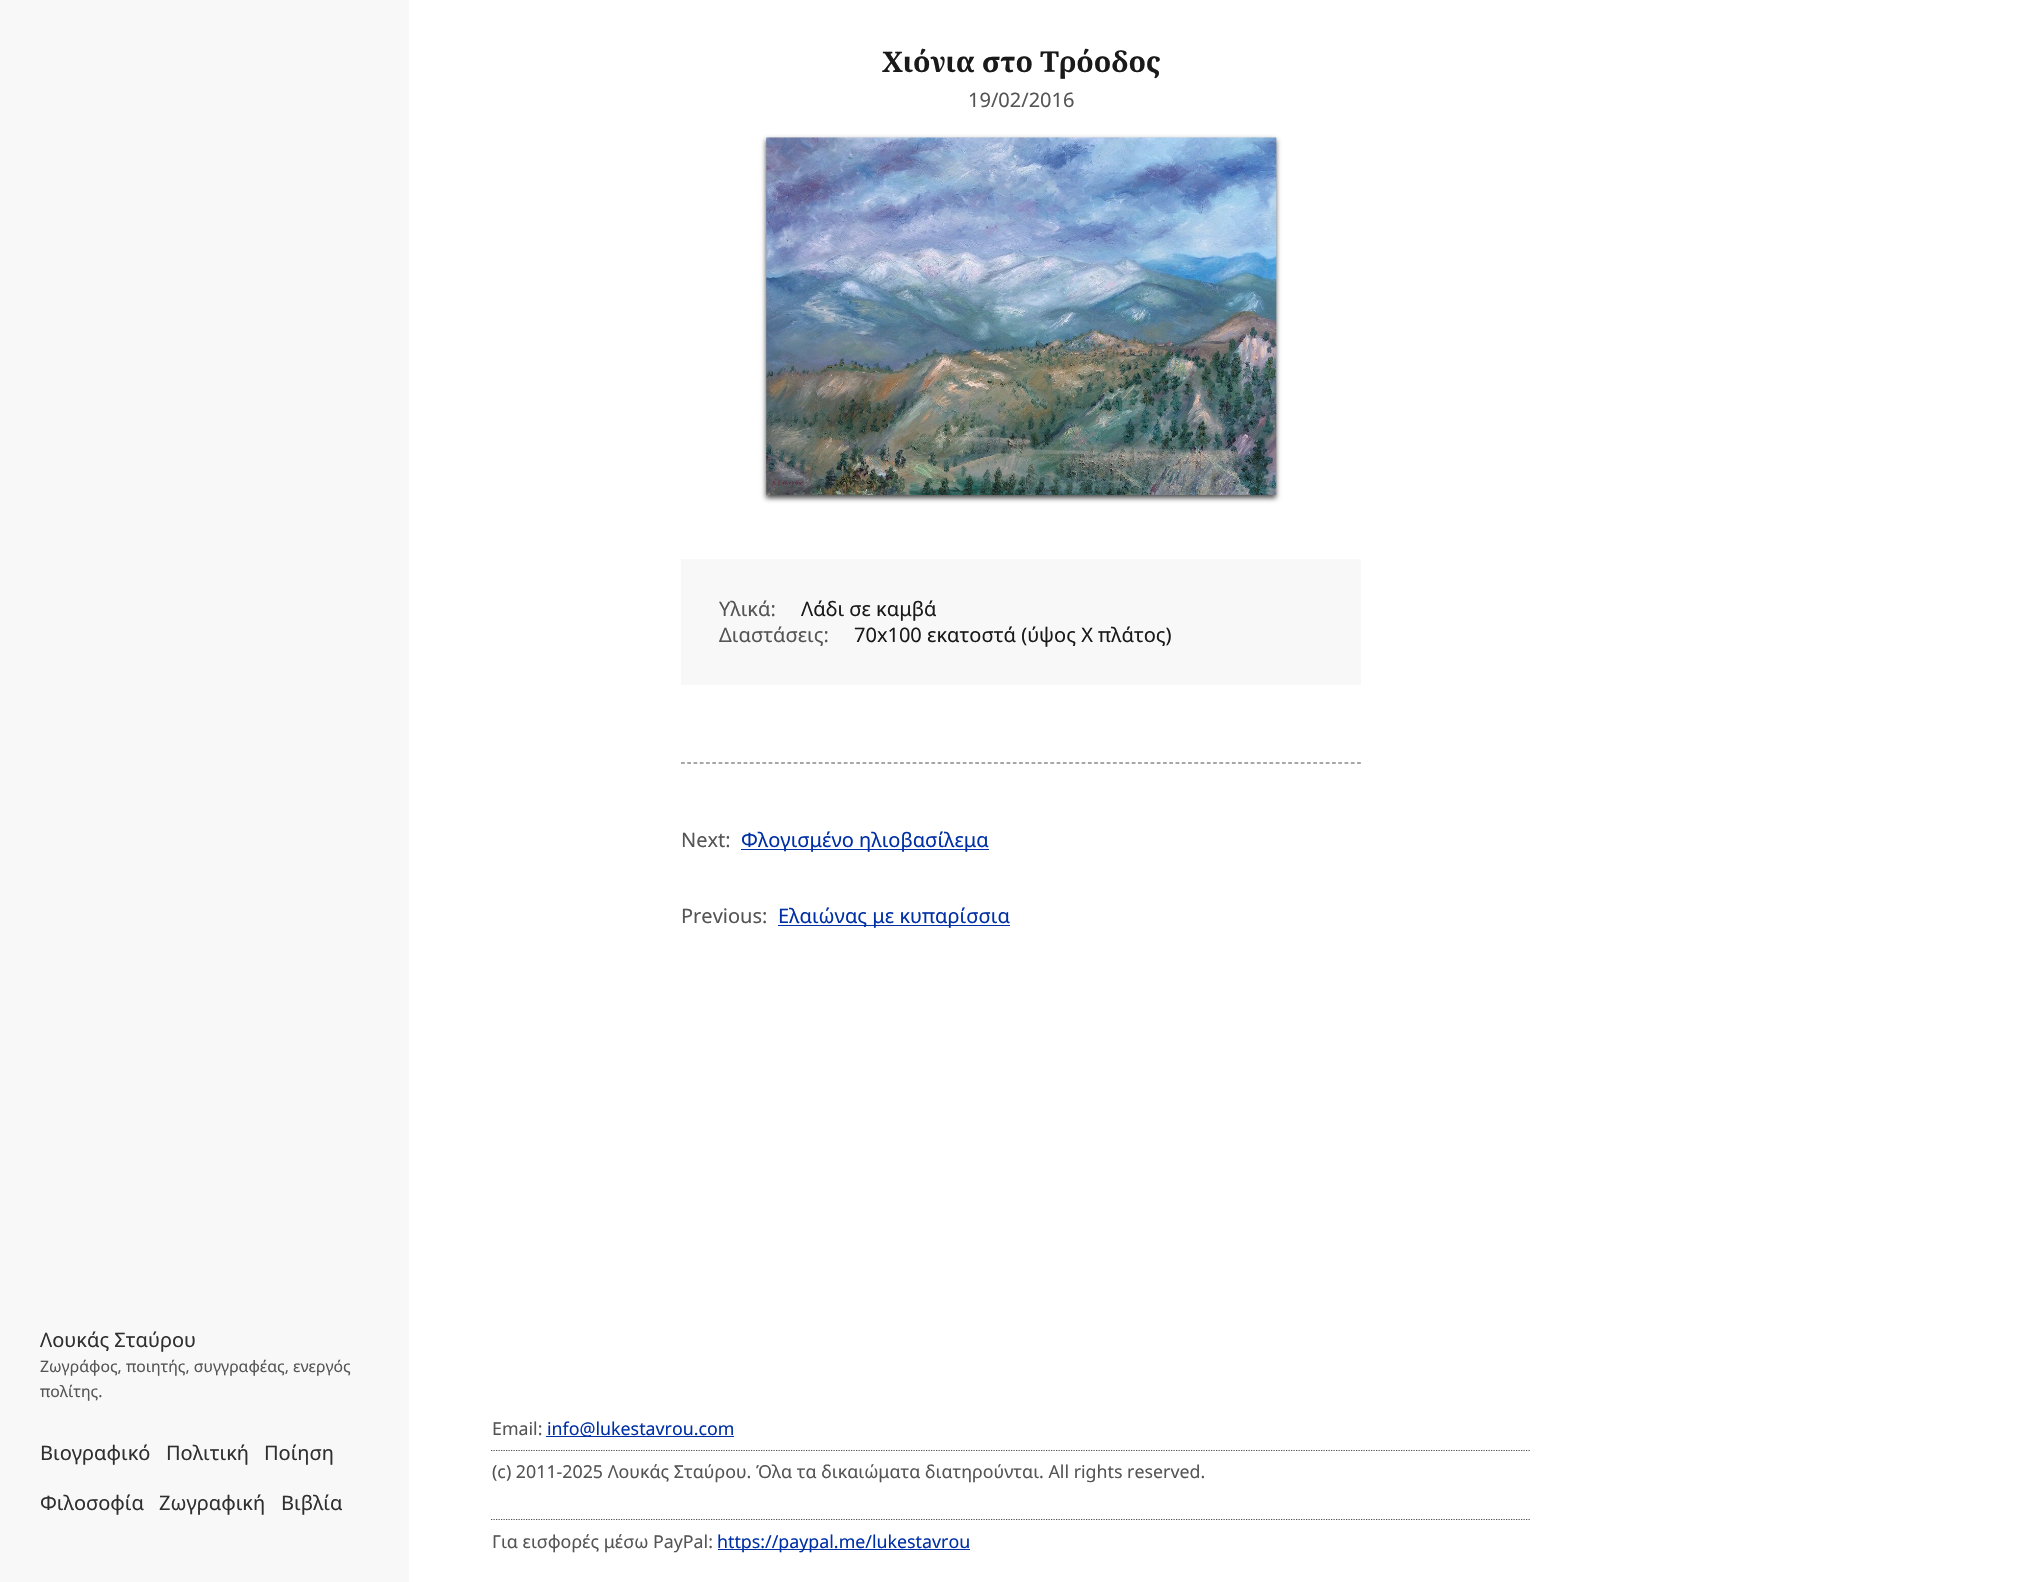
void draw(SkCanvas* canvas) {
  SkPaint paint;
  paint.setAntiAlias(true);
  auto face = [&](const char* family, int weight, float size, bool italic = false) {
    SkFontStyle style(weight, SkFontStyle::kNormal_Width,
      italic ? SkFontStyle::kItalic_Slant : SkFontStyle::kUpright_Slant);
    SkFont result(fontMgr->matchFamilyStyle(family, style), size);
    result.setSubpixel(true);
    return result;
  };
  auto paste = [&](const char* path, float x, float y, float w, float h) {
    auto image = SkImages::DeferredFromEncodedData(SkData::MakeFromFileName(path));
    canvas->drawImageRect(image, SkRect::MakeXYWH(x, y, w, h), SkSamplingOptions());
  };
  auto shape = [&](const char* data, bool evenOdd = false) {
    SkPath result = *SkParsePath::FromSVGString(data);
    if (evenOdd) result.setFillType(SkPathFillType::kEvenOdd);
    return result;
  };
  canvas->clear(0xffffffff);
  paint.setColor(0xb3000000);
  paint.setMaskFilter(SkMaskFilter::MakeBlur(kNormal_SkBlurStyle, 2.5f));
  canvas->drawRect(SkRect::MakeXYWH(766, 140, 510, 358), paint);
  paint.setMaskFilter(nullptr);
  paste("img/1.png", 766, 137, 511, 358);
  paint.setColor(0xfff8f8f8);
  canvas->drawRect(SkRect::MakeXYWH(681, 559, 680, 126), paint);
  paint.setStroke(true);
  paint.setStrokeWidth(1.2f);
  paint.setColor(0xff505050);
  paint.setPathEffect(SkDashPathEffect::Make({{3.75f, 2.51f}}, 0));
  canvas->drawPath(shape("M681 763H1361"), paint);
  paint.setPathEffect(nullptr);
  paint.setStroke(false);
  {
    const struct { float x, y, w, h; SkColor color; } items[] = {
      {741, 849, 248, 1, 0xff0030a6},
      {778, 925, 232, 1, 0xff0030a6},
      {0, 0, 409, 1582, 0xfff8f8f8},
      {546, 1436, 188, 1, 0xff0030a6},
    };
    for (auto [x, y, w, h, color] : items) {
      paint.setColor(color);
      canvas->drawRect(SkRect::MakeXYWH(x, y, w, h), paint);
    }
  }
  paint.setStroke(true);
  paint.setColor(0xff505050);
  paint.setPathEffect(SkDashPathEffect::Make({{1.25f, 1.25f}}, 0));
  canvas->drawPath(shape("M491 1450.5H1531"), paint);
  paint.setPathEffect(nullptr);
  paint.setPathEffect(SkDashPathEffect::Make({{1.25f, 1.25f}}, 0));
  canvas->drawPath(shape("M491 1519.5H1531"), paint);
  paint.setPathEffect(nullptr);
  paint.setStroke(false);
  paint.setColor(0xff0030a6);
  canvas->drawRect(SkRect::MakeXYWH(718, 1549, 252, 1), paint);
  auto f0 = face("Noto Serif", 700, 28.5f);
  paint.setColor(0xff1a1a1a);
  canvas->drawString("Χιόνια στο Τρόοδος", 882, 72, f0, paint);
  auto f1 = face("Noto Sans", 400, 20);
  paint.setColor(0xff555555);
  canvas->drawString("19/02/2016", 968, 107, f1, paint);
  canvas->drawString("Υλικά:", 719, 616, f1, paint);
  paint.setColor(0xff1a1a1a);
  canvas->drawString("Λάδι σε καμβά", 801, 616, f1, paint);
  paint.setColor(0xff555555);
  canvas->drawString("Διαστάσεις:", 719, 642, f1, paint);
  paint.setColor(0xff1a1a1a);
  canvas->drawString("70x100 εκατοστά (ύψος Χ πλάτος)", 854, 642, f1, paint);
  paint.setColor(0xff555555);
  canvas->drawString("Next:", 681, 847, f1, paint);
  paint.setColor(0xff0030a6);
  canvas->drawString("Φλογισμένο ηλιοβασίλεμα", 741, 847, f1, paint);
  paint.setColor(0xff555555);
  canvas->drawString("Previous:", 681, 923, f1, paint);
  paint.setColor(0xff0030a6);
  canvas->drawString("Ελαιώνας με κυπαρίσσια", 778, 923, f1, paint);
  paint.setColor(0xff303030);
  canvas->drawString("Λουκάς Σταύρου", 40, 1347, f1, paint);
  auto f2 = face("Noto Sans", 400, 15.75f);
  paint.setColor(0xff555555);
  canvas->drawString("Ζωγράφος, ποιητής, συγγραφέας, ενεργός", 40, 1372, f2, paint);
  canvas->drawString("πολίτης.", 40, 1397, f2, paint);
  paint.setColor(0xff303030);
  {
    const struct { const char* s; float x, y; } items[] = {
      {"Βιογραφικό", 40, 1460},
      {"Πολιτική", 166, 1460},
      {"Ποίηση", 264, 1460},
      {"Φιλοσοφία", 40, 1510},
      {"Ζωγραφική", 159, 1510},
      {"Βιβλία", 281, 1510},
    };
    for (auto [s, x, y] : items) {
      canvas->drawString(s, x, y, f1, paint);
    }
  }
  auto f3 = face("Noto Sans", 400, 17.8f);
  paint.setColor(0xff555555);
  canvas->drawString("Email:", 492, 1435, f3, paint);
  paint.setColor(0xff0030a6);
  canvas->drawString("info@lukestavrou.com", 547, 1435, f3, paint);
  paint.setColor(0xff555555);
  canvas->drawString("(c) 2011-2025 Λουκάς Σταύρου. Όλα τα δικαιώματα διατηρούνται. All rights reserved.", 492, 1478, f3, paint);
  canvas->drawString("Για εισφορές μέσω PayPal:", 492, 1548, f3, paint);
  paint.setColor(0xff0030a6);
  canvas->drawString("https://paypal.me/lukestavrou", 717, 1548, f3, paint);
}
